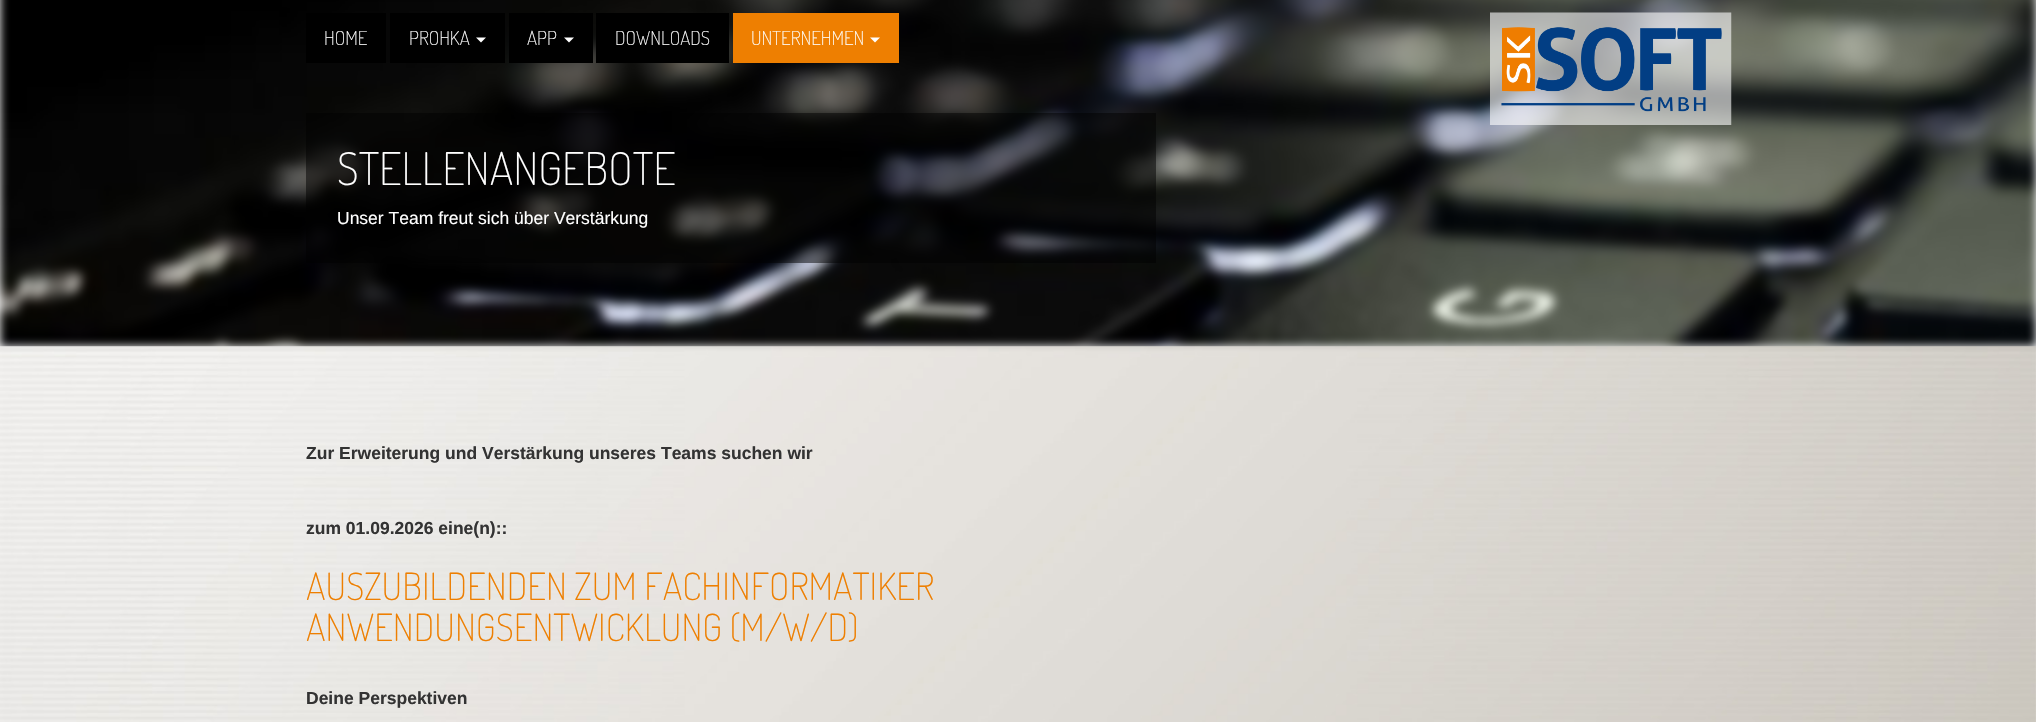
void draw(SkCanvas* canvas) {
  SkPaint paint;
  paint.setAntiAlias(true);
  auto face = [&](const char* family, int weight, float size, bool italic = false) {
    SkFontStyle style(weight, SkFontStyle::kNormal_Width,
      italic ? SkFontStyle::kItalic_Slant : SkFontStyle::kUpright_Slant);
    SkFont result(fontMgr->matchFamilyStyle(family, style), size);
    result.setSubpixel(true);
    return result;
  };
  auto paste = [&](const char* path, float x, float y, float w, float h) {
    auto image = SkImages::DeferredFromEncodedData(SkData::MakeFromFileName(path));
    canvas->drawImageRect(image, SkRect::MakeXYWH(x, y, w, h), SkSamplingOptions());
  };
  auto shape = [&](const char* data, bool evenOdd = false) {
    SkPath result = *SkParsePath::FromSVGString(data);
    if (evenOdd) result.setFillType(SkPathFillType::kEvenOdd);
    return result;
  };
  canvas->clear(0xffffffff);
  paste("img/2.png", 0, 0, 2036, 347);
  paint.setColor(0xff000000);
  canvas->drawRect(SkRect::MakeXYWH(306, 13, 80, 50), paint);
  canvas->drawRect(SkRect::MakeXYWH(390, 13, 115, 50), paint);
  paint.setColor(0xffffffff);
  canvas->drawPath(shape("M476 37.5H486L481 42.5Z"), paint);
  paint.setColor(0xff000000);
  canvas->drawRect(SkRect::MakeXYWH(509, 13, 84, 50), paint);
  paint.setColor(0xffffffff);
  canvas->drawPath(shape("M564 37.5H574L569 42.5Z"), paint);
  paint.setColor(0xff000000);
  canvas->drawRect(SkRect::MakeXYWH(596, 13, 133, 50), paint);
  paint.setColor(0xffee7f01);
  canvas->drawRect(SkRect::MakeXYWH(733, 13, 166, 50), paint);
  paint.setColor(0xffffffff);
  canvas->drawPath(shape("M870 37.5H880L875 42.5Z"), paint);
  paste("img/1.png", 1490, 12, 242, 113);
  paint.setColor(0x80000000);
  canvas->drawRect(SkRect::MakeXYWH(306, 113, 850, 150), paint);
  paste("img/3.png", 0, 346, 2036, 376);
  auto f0 = face("Dosis", 200, 19.25f);
  paint.setColor(0xffffffff);
  {
    const struct { const char* s; float x, y; } items[] = {
      {"HOME", 324, 45},
      {"PROHKA", 409, 45},
      {"APP", 527, 45},
      {"DOWNLOADS", 615, 45},
      {"UNTERNEHMEN", 751, 45},
    };
    for (auto [s, x, y] : items) {
      canvas->drawString(s, x, y, f0, paint);
    }
  }
  auto f1 = face("Dosis", 200, 45);
  canvas->drawString("STELLENANGEBOTE", 337, 185, f1, paint);
  auto f2 = face("Liberation Sans", 400, 17.5f);
  canvas->drawString("Unser Team freut sich über Verstärkung", 337, 224, f2, paint);
  auto f3 = face("Liberation Sans", 700, 17.5f);
  paint.setColor(0xff333333);
  canvas->drawString("Zur Erweiterung und Verstärkung unseres Teams suchen wir", 306, 459, f3, paint);
  canvas->drawString("zum 01.09.2026 eine(n)::", 306, 534, f3, paint);
  auto f4 = face("Dosis", 200, 37.5f);
  paint.setColor(0xffee7f01);
  canvas->drawString("AUSZUBILDENDEN ZUM FACHINFORMATIKER", 306, 600, f4, paint);
  canvas->drawString("ANWENDUNGSENTWICKLUNG (M/W/D)", 306, 641, f4, paint);
  paint.setColor(0xff333333);
  canvas->drawString("Deine Perspektiven", 306, 704, f3, paint);
}
